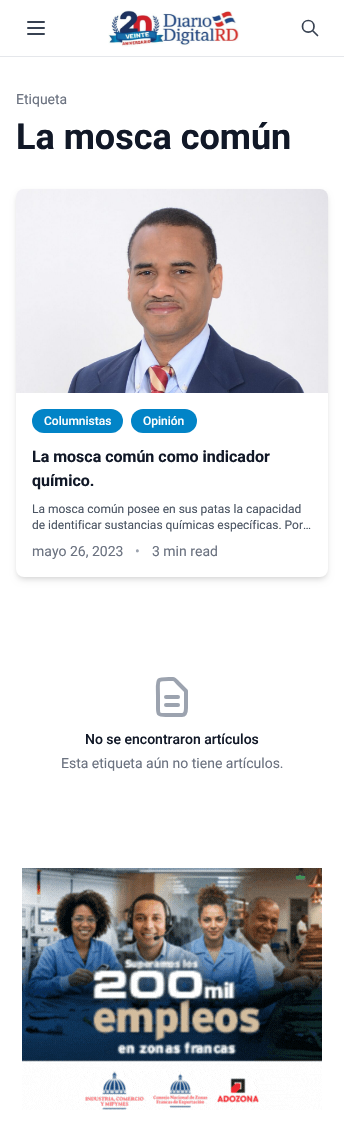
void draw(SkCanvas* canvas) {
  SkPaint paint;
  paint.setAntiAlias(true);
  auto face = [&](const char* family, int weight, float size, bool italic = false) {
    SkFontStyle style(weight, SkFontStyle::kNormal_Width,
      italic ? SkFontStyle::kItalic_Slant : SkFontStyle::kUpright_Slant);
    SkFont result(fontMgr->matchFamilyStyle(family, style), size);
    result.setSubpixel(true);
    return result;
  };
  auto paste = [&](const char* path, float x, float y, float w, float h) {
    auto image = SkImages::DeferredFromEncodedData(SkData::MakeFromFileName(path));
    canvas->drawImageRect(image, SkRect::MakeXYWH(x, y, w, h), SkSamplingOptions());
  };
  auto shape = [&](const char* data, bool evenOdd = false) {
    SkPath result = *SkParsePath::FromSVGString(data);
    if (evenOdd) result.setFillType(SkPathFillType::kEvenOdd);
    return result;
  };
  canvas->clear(0xffffffff);
  paint.setColor(0xffe5e7eb);
  canvas->drawRect(SkRect::MakeXYWH(0, 56, 344, 1), paint);
  paint.setStroke(true);
  paint.setStrokeWidth(2);
  paint.setStrokeCap(SkPaint::kRound_Cap);
  paint.setStrokeJoin(SkPaint::kRound_Join);
  paint.setColor(0xff374151);
  canvas->drawPath(shape("M28 22H44M28 28H44M28 34H44"), paint);
  paste("img/1.png", 108, 10, 131, 37);
  paint.setStrokeWidth(1.7f);
  canvas->drawPath(shape("M317.5 35.5L312.5 30.5M314 26.5C314 34 302.5 34 302.5 26.5C302.5 18.5 314 18.5 314 26.5Z"), paint);
  paint.setStroke(false);
  paint.setColor(0x1a000000);
  paint.setMaskFilter(SkMaskFilter::MakeBlur(kNormal_SkBlurStyle, 2));
  canvas->drawRoundRect(SkRect::MakeXYWH(18, 193, 308, 384), 6, 6, paint);
  paint.setMaskFilter(nullptr);
  paint.setMaskFilter(SkMaskFilter::MakeBlur(kNormal_SkBlurStyle, 3));
  canvas->drawRoundRect(SkRect::MakeXYWH(17, 194, 310, 386), 7, 7, paint);
  paint.setMaskFilter(nullptr);
  paint.setColor(0xffffffff);
  canvas->drawRoundRect(SkRect::MakeXYWH(16, 189, 312, 388), 8, 8, paint);
  paste("img/2.png", 16, 189, 312, 204);
  paint.setColor(0xff0284c7);
  canvas->drawRoundRect(SkRect::MakeXYWH(32, 409, 91, 24), 12, 12, paint);
  canvas->drawRoundRect(SkRect::MakeXYWH(131, 409, 66, 24), 12, 12, paint);
  paint.setStroke(true);
  paint.setStrokeWidth(4);
  paint.setColor(0xff9ca3af);
  canvas->drawPath(shape("M166 697H178M166 705H178M182 715H165.5C157.5 715 158 714 158 706.5V697C158 677.5 155 679 173 679C175 679 177 682 178 683L186 691V708C186 711 186 715 182 715Z"), paint);
  paste("img/3.png", 22, 868, 300, 242);
  auto f0 = face("Roboto", 400, 14);
  paint.setStroke(false);
  paint.setColor(0xff6b7280);
  canvas->drawString("Etiqueta", 16, 104, f0, paint);
  auto f1 = face("Roboto", 700, 36);
  paint.setColor(0xff111827);
  canvas->drawString("La mosca común", 16, 149, f1, paint);
  auto f2 = face("Roboto", 500, 12);
  paint.setColor(0xffffffff);
  canvas->drawString("Columnistas", 44, 425, f2, paint);
  canvas->drawString("Opinión", 143, 425, f2, paint);
  auto f3 = face("Roboto", 700, 16);
  paint.setColor(0xff111827);
  canvas->drawString("La mosca común como indicador", 32, 462, f3, paint);
  canvas->drawString("químico.", 32, 486, f3, paint);
  auto f4 = face("Roboto", 400, 12);
  paint.setColor(0xff4b5563);
  canvas->drawString("La mosca común posee en sus patas la capacidad", 32, 513, f4, paint);
  canvas->drawString("de identificar sustancias químicas específicas. Por…", 32, 529, f4, paint);
  paint.setColor(0xff6b7280);
  canvas->drawString("mayo 26, 2023", 32, 556, f0, paint);
  paint.setColor(0xff9ca3af);
  canvas->drawString("•", 135, 556, f0, paint);
  paint.setColor(0xff6b7280);
  canvas->drawString("3 min read", 152, 556, f0, paint);
  auto f5 = face("Roboto", 500, 14);
  paint.setColor(0xff111827);
  canvas->drawString("No se encontraron artículos", 85, 744, f5, paint);
  paint.setColor(0xff6b7280);
  canvas->drawString("Esta etiqueta aún no tiene artículos.", 61, 768, f0, paint);
}
